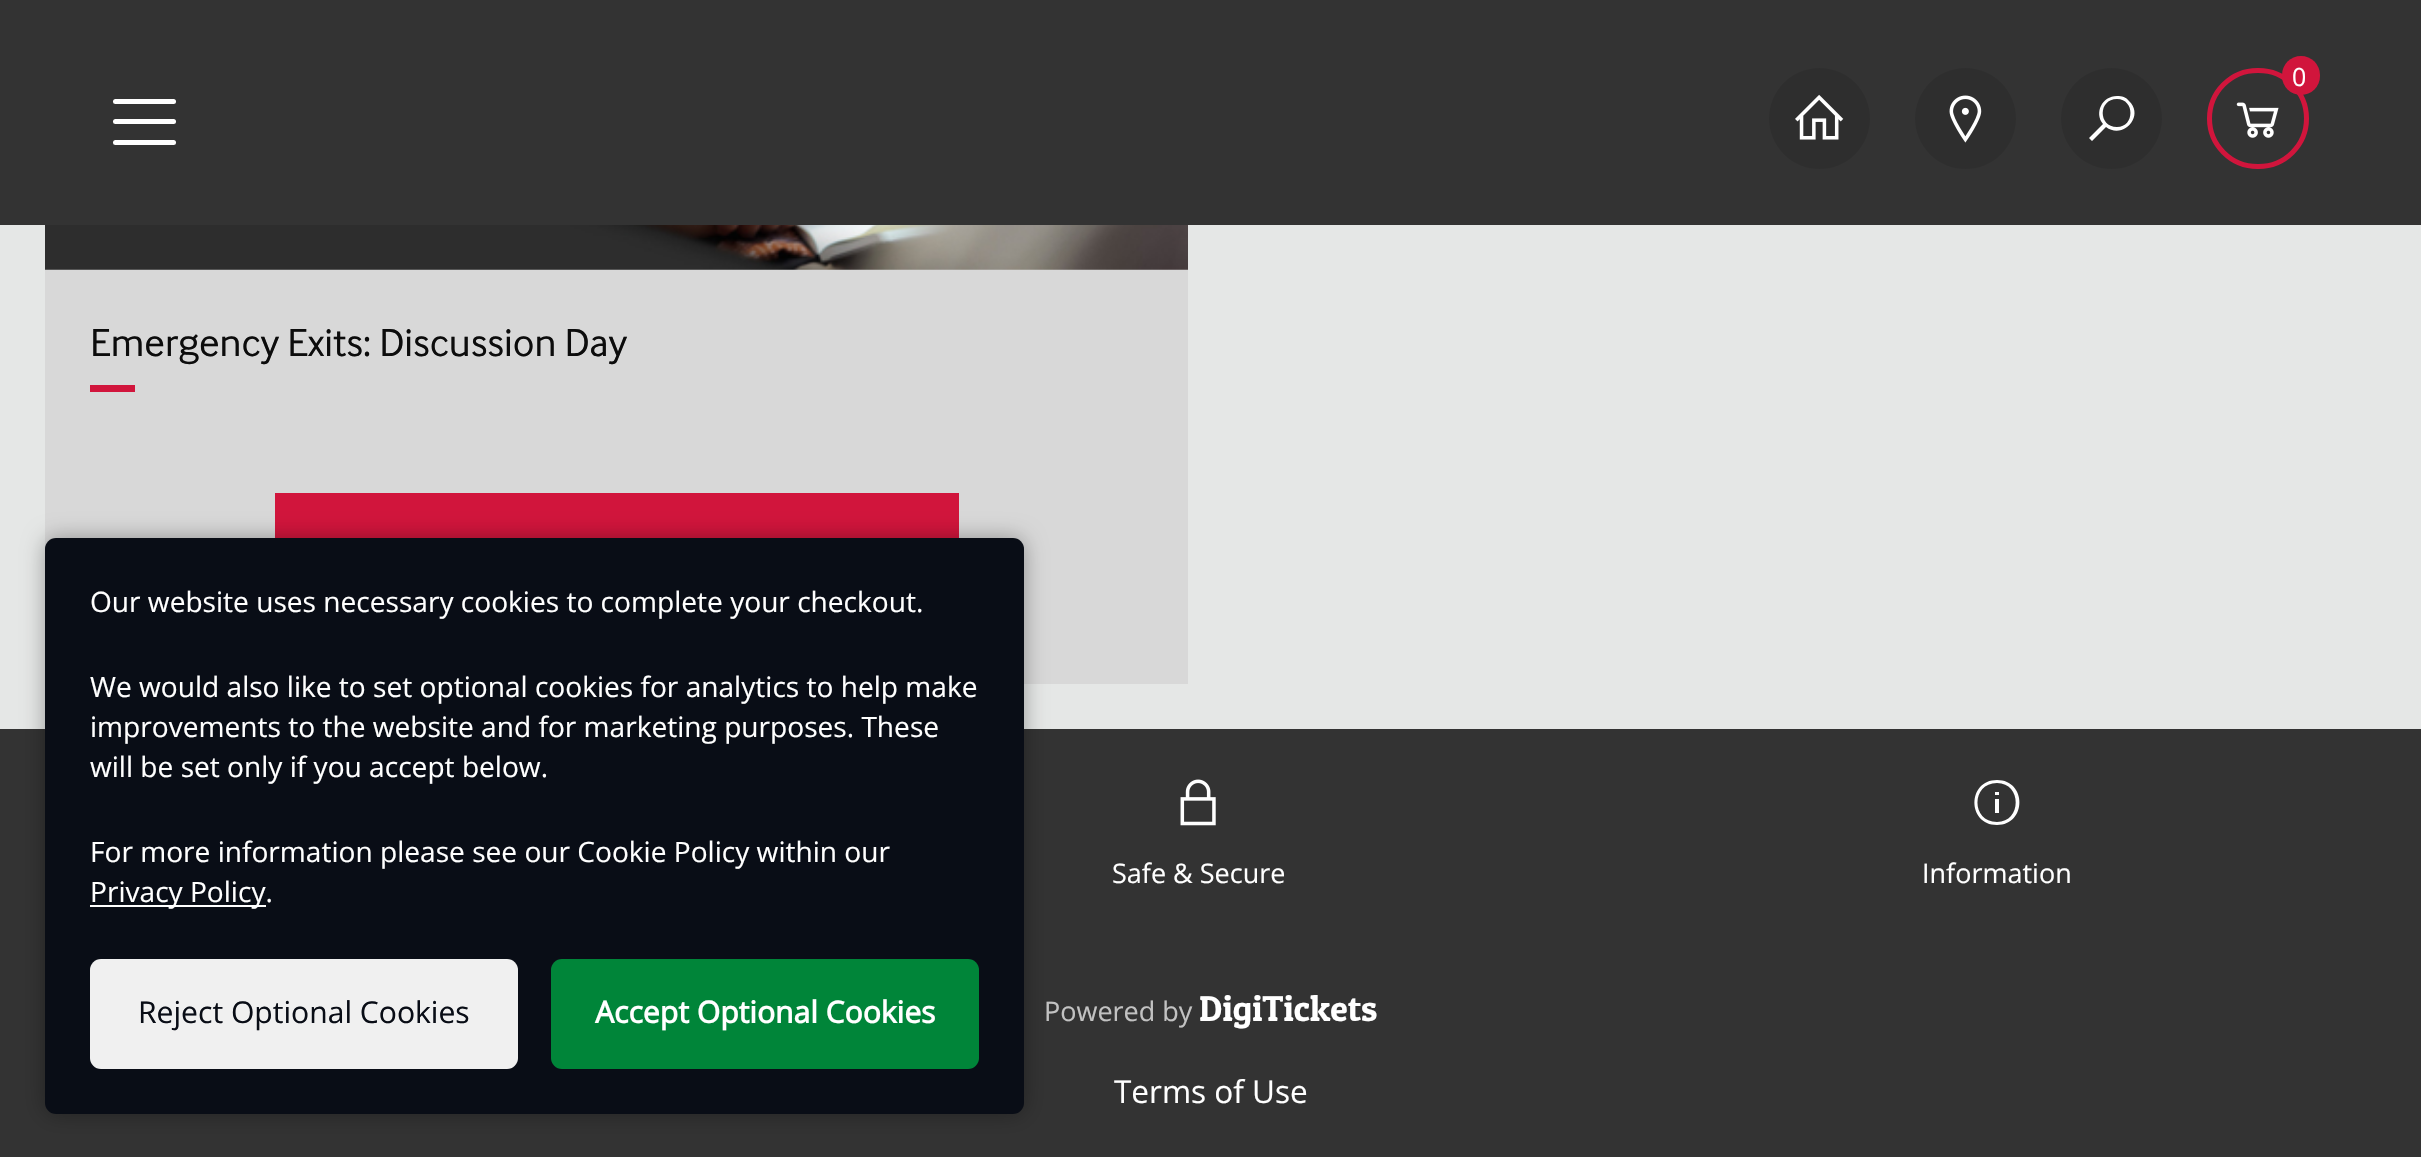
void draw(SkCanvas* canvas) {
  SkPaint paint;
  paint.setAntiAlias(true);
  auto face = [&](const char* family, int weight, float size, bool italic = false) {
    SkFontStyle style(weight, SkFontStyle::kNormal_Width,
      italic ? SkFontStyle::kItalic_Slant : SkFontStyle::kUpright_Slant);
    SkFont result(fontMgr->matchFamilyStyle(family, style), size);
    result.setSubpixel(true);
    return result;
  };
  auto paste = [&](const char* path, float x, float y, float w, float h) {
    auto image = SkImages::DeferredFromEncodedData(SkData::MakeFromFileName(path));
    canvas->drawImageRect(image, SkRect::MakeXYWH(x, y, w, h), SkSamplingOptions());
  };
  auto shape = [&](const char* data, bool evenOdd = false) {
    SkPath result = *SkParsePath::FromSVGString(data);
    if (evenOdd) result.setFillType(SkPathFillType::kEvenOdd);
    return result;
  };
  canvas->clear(0xffe5e7e6);
  paint.setColor(0xff333333);
  canvas->drawRect(SkRect::MakeXYWH(0, 0, 2421, 225), paint);
  paint.setColor(0xff2e2e2e);
  canvas->drawCircle(1819.5f, 118.5f, 50.5f, paint);
  paste("img/1.png", 1795, 94, 49, 46);
  canvas->drawCircle(1965.5f, 118.5f, 50.5f, paint);
  paste("img/2.png", 1949, 95, 33, 48);
  canvas->drawCircle(2111.5f, 118.5f, 50.5f, paint);
  paint.setColor(0xffffffff);
  canvas->drawPath(shape("M2117 96C2102 96 2094 113 2103 124L2089 138L2092 141L2106 127C2123 140 2145 116 2129 101C2126 97 2122 96 2117 96ZM2117 99C2135 99 2135 127 2117 127C2098 127 2098 99 2117 99Z"), paint);
  paint.setStroke(true);
  paint.setStrokeWidth(5);
  paint.setColor(0xffd1153c);
  canvas->drawRoundRect(SkRect::MakeXYWH(2209.5f, 70.5f, 97, 96), 48, 48, paint);
  paste("img/3.png", 2236, 102, 43, 36);
  paint.setStroke(false);
  canvas->drawRoundRect(SkRect::MakeXYWH(2282, 56, 38, 39), 19, 19, paint);
  paint.setColor(0xffffffff);
  canvas->drawRoundRect(SkRect::MakeXYWH(113, 99, 63, 5), 2.5f, 2.5f, paint);
  canvas->drawRoundRect(SkRect::MakeXYWH(113, 119, 63, 5), 2.5f, 2.5f, paint);
  canvas->drawRoundRect(SkRect::MakeXYWH(113, 140, 63, 5), 2.5f, 2.5f, paint);
  paint.setColor(0xffd8d8d8);
  canvas->drawRect(SkRect::MakeXYWH(45, 269, 1143, 415), paint);
  paste("img/4.png", 45, 225, 1143, 45);
  {
    const struct { float x, y, w, h; SkColor color; } items[] = {
      {90, 385, 45, 7, 0xffd1153c},
      {275, 493, 684, 45, 0xffd1153c},
      {0, 729, 2421, 428, 0xff333333},
    };
    for (auto [x, y, w, h, color] : items) {
      paint.setColor(color);
      canvas->drawRect(SkRect::MakeXYWH(x, y, w, h), paint);
    }
  }
  paint.setColor(0x54000000);
  paint.setMaskFilter(SkMaskFilter::MakeBlur(kNormal_SkBlurStyle, 11));
  canvas->drawRoundRect(SkRect::MakeXYWH(45, 538, 979, 576), 11, 11, paint);
  paint.setMaskFilter(nullptr);
  paint.setColor(0xff090d16);
  canvas->drawRoundRect(SkRect::MakeXYWH(45, 538, 979, 576), 11, 11, paint);
  paint.setColor(0xffffffff);
  canvas->drawRect(SkRect::MakeXYWH(90, 905, 176, 2), paint);
  paint.setColor(0xfff0f0f0);
  canvas->drawRoundRect(SkRect::MakeXYWH(90, 959, 428, 110), 11, 11, paint);
  paint.setColor(0xff008539);
  canvas->drawRoundRect(SkRect::MakeXYWH(551, 959, 428, 110), 11, 11, paint);
  paste("img/5.png", 1180, 779, 36, 47);
  paint.setColor(0xffffffff);
  canvas->drawPath(shape("M1997 780C1967 780 1967 825 1997 825C2027 825 2027 780 1997 780ZM1997 783C2022 783 2022 822 1997 822C1971 822 1971 783 1997 783ZM1995 792V795H1999V792ZM1995 799V813H1999V799Z"), paint);
  auto f0 = face("Open Sans", 400, 25);
  canvas->drawString("0", 2292, 86, f0, paint);
  auto f1 = face("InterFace", 400, 40.5f);
  paint.setColor(0xff0c0c0c);
  canvas->drawString("Emergency Exits: Discussion Day", 90, 356, f1, paint);
  auto f2 = face("Open Sans", 400, 28.1f);
  paint.setColor(0xffffffff);
  {
    const struct { const char* s; float x, y; } items[] = {
      {"Our website uses necessary cookies to complete your checkout.", 90, 612},
      {"We would also like to set optional cookies for analytics to help make", 90, 697},
      {"improvements to the website and for marketing purposes. These", 90, 737},
      {"will be set only if you accept below.", 90, 777},
      {"For more information please see our Cookie Policy within our", 90, 862},
      {"Privacy Policy.", 90, 902},
    };
    for (auto [s, x, y] : items) {
      canvas->drawString(s, x, y, f2, paint);
    }
  }
  auto f3 = face("Open Sans", 400, 30.1f);
  paint.setColor(0xff090d16);
  canvas->drawString("Reject Optional Cookies", 138, 1023, f3, paint);
  auto f4 = face("Open Sans", 700, 30.1f);
  paint.setColor(0xffffffff);
  canvas->drawString("Accept Optional Cookies", 595, 1023, f4, paint);
  auto f5 = face("Open Sans", 400, 27);
  canvas->drawString("Safe & Secure", 1112, 883, f5, paint);
  canvas->drawString("Information", 1922, 883, f5, paint);
  paint.setColor(0xffc2c2c2);
  canvas->drawString("Powered by", 1044, 1021, f5, paint);
  auto f6 = face("Patua One", 400, 36);
  paint.setColor(0xffffffff);
  canvas->drawString("DigiTickets", 1199, 1021, f6, paint);
  auto f7 = face("Open Sans", 400, 31.5f);
  canvas->drawString("Terms of Use", 1114, 1103, f7, paint);
}
